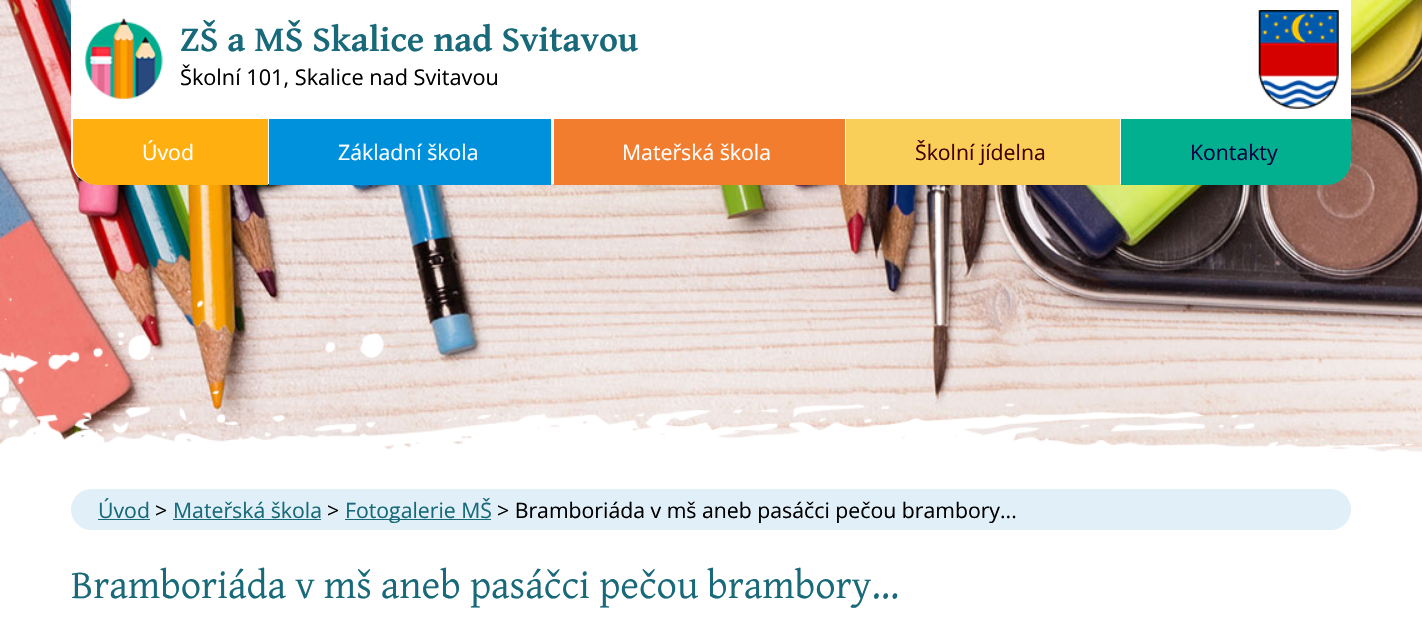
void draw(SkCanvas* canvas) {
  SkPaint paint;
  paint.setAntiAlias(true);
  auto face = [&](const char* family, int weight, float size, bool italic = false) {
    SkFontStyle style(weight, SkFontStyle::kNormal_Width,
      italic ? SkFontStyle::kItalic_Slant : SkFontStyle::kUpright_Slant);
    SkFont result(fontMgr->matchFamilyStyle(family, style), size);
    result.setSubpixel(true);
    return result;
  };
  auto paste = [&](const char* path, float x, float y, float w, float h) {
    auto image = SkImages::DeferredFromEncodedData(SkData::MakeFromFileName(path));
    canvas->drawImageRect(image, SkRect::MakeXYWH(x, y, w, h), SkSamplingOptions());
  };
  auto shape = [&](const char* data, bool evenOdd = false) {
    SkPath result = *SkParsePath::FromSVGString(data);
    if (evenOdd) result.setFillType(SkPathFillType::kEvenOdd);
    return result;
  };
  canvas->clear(0xffffffff);
  paste("img/1.png", 0, 0, 1422, 471);
  paint.setColor(0xffffffff);
  canvas->drawPath(shape("M71 0H1351V159C1351 173 1340 184 1326 184H96C82 184 71 173 71 159Z"), paint);
  paste("img/2.png", 84, 18, 79, 81);
  paste("img/3.png", 1258, 10, 81, 99);
  paste("img/4.png", 0, 290, 1422, 199);
  paint.setColor(0xffffaf10);
  canvas->drawPath(shape("M73 119H268V185H98C84 185 73 174 73 160Z"), paint);
  {
    const struct { float x, y, w, h; SkColor color; } items[] = {
      {269, 119, 282, 66, 0xff0091dd},
      {554, 119, 291, 66, 0xfff27d2e},
      {846, 119, 274, 66, 0xfff9ce59},
    };
    for (auto [x, y, w, h, color] : items) {
      paint.setColor(color);
      canvas->drawRect(SkRect::MakeXYWH(x, y, w, h), paint);
    }
  }
  paint.setColor(0xff02af8e);
  canvas->drawPath(shape("M1121 119H1351V160C1351 174 1340 185 1326 185H1121Z"), paint);
  paint.setColor(0xffe0eff8);
  canvas->drawRoundRect(SkRect::MakeXYWH(71, 489, 1280, 41), 20.5f, 20.5f, paint);
  {
    const struct { float x, y, w, h; SkColor color; } items[] = {
      {98, 519, 52, 1, 0xff186979},
      {173, 519, 148, 1, 0xff186979},
      {345, 519, 146, 1, 0xff186979},
    };
    for (auto [x, y, w, h, color] : items) {
      paint.setColor(color);
      canvas->drawRect(SkRect::MakeXYWH(x, y, w, h), paint);
    }
  }
  auto f0 = face("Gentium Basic", 700, 36.1f);
  canvas->drawString("ZŠ a MŠ Skalice nad Svitavou", 180, 51, f0, paint);
  auto f1 = face("Open Sans", 400, 21.7f);
  paint.setColor(0xff000000);
  canvas->drawString("Školní 101, Skalice nad Svitavou", 180, 85, f1, paint);
  auto f2 = face("Open Sans", 400, 21.25f);
  paint.setColor(0xffffffff);
  {
    const struct { const char* s; float x, y; } items[] = {
      {"Úvod", 142, 160},
      {"Základní škola", 338, 160},
      {"Mateřská škola", 622, 160},
    };
    for (auto [s, x, y] : items) {
      canvas->drawString(s, x, y, f2, paint);
    }
  }
  paint.setColor(0xff400000);
  canvas->drawString("Školní jídelna", 915, 160, f2, paint);
  paint.setColor(0xff000040);
  canvas->drawString("Kontakty", 1190, 160, f2, paint);
  paint.setColor(0xff186979);
  canvas->drawString("Úvod", 98, 518, f2, paint);
  paint.setColor(0xff000000);
  canvas->drawString(">", 155, 518, f2, paint);
  paint.setColor(0xff186979);
  canvas->drawString("Mateřská škola", 173, 518, f2, paint);
  paint.setColor(0xff000000);
  canvas->drawString(">", 327, 518, f2, paint);
  paint.setColor(0xff186979);
  canvas->drawString("Fotogalerie MŠ", 345, 518, f2, paint);
  paint.setColor(0xff000000);
  canvas->drawString("> Bramboriáda v mš aneb pasáčci pečou brambory...", 497, 518, f2, paint);
  auto f3 = face("Gentium Basic", 400, 40.4f);
  paint.setColor(0xff186979);
  canvas->drawString("Bramboriáda v mš aneb pasáčci pečou brambory...", 71, 598, f3, paint);
}
